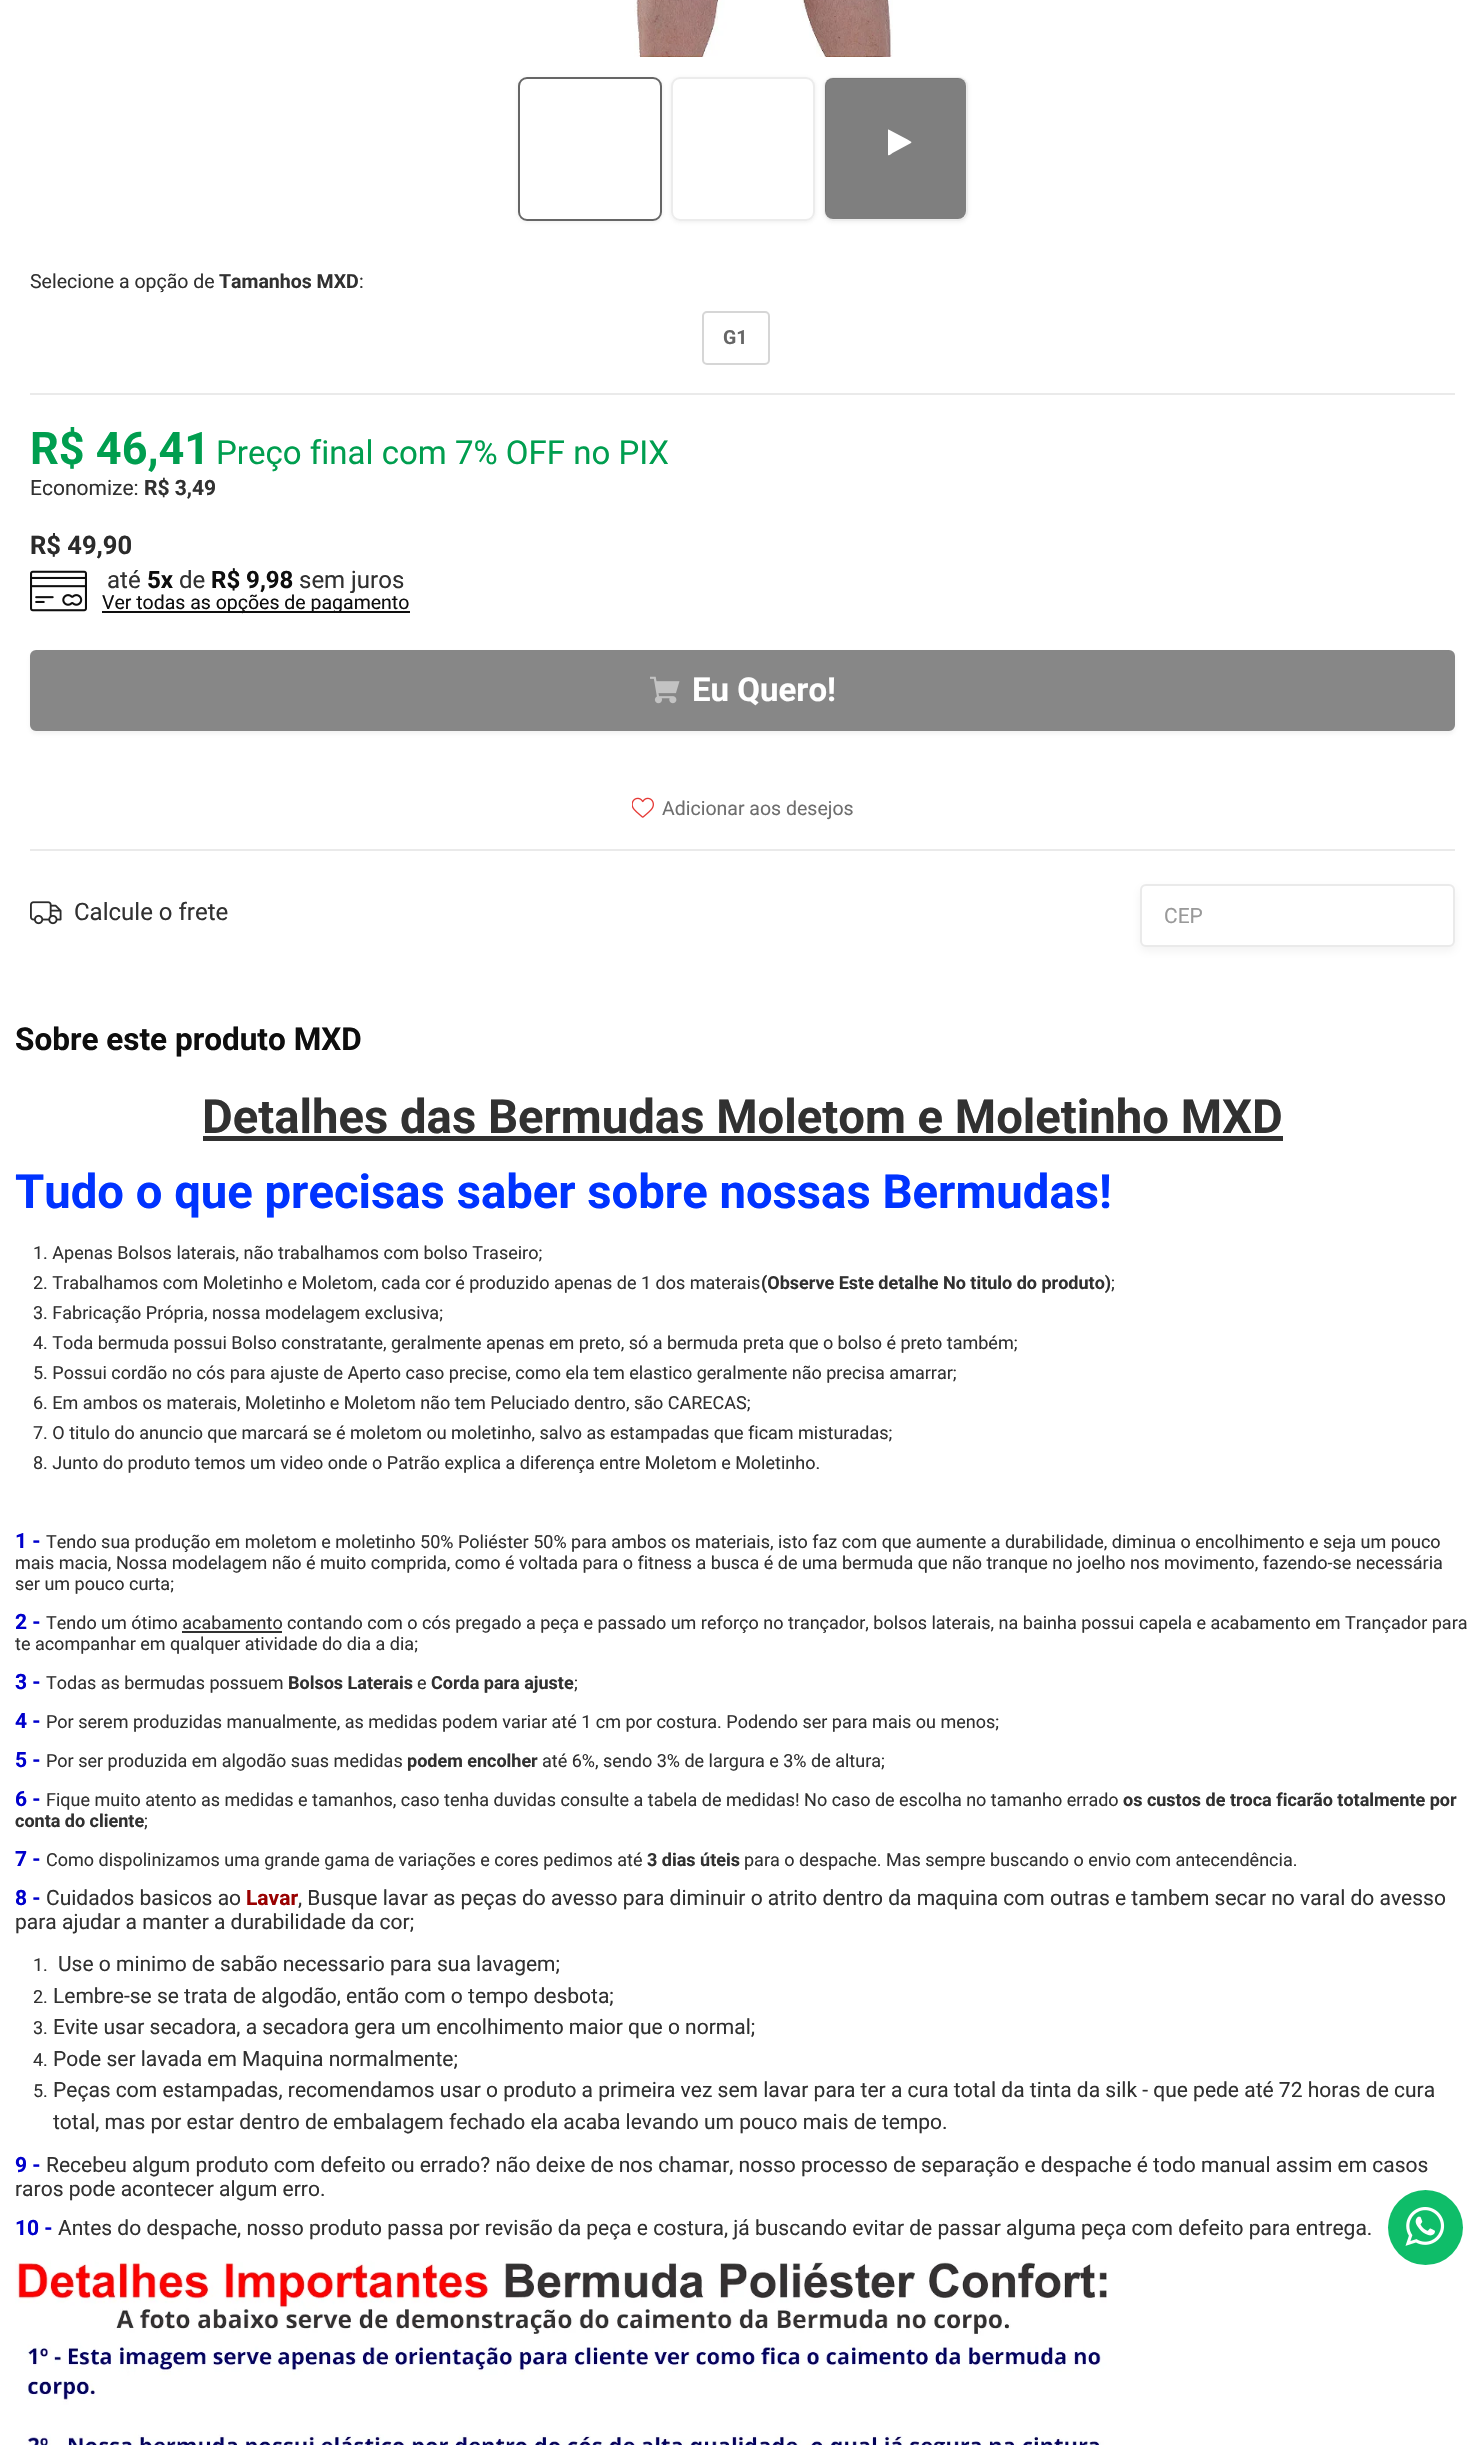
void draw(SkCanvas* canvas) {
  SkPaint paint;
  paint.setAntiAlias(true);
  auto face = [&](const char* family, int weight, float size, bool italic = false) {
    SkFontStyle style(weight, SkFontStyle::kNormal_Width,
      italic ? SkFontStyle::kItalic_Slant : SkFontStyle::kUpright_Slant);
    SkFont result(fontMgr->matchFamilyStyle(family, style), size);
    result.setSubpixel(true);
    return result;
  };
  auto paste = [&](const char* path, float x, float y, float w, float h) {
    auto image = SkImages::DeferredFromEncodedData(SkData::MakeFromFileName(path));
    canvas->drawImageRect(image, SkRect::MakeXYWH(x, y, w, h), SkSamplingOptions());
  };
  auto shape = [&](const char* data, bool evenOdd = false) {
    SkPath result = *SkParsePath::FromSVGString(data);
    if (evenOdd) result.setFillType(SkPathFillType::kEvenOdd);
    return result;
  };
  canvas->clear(0xffffffff);
  paste("img/1.png", 634, 0, 259, 57);
  canvas->save();
  canvas->clipPath(shape("M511 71H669V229H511ZM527 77H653C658 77 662 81 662 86V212C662 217 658 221 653 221H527C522 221 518 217 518 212V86C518 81 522 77 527 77Z", true), true);
  paint.setColor(0x24898989);
  paint.setMaskFilter(SkMaskFilter::MakeBlur(kNormal_SkBlurStyle, 2));
  canvas->drawRoundRect(SkRect::MakeXYWH(518, 78, 144, 144), 9, 9, paint);
  paint.setMaskFilter(nullptr);
  canvas->restore();
  paint.setStroke(true);
  paint.setStrokeWidth(2);
  paint.setColor(0xff666666);
  canvas->drawRoundRect(SkRect::MakeXYWH(519, 78, 142, 142), 8, 8, paint);
  canvas->save();
  canvas->clipPath(shape("M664 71H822V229H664ZM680 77H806C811 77 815 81 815 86V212C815 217 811 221 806 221H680C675 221 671 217 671 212V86C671 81 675 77 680 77Z", true), true);
  paint.setStroke(false);
  paint.setColor(0x24898989);
  paint.setMaskFilter(SkMaskFilter::MakeBlur(kNormal_SkBlurStyle, 2));
  canvas->drawRoundRect(SkRect::MakeXYWH(671, 78, 144, 144), 9, 9, paint);
  paint.setMaskFilter(nullptr);
  canvas->restore();
  paint.setStroke(true);
  paint.setColor(0xffececec);
  canvas->drawRoundRect(SkRect::MakeXYWH(672, 78, 142, 142), 8, 8, paint);
  canvas->save();
  canvas->clipPath(shape("M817 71H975V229H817ZM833 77H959C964 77 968 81 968 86V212C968 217 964 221 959 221H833C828 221 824 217 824 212V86C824 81 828 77 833 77Z", true), true);
  paint.setStroke(false);
  paint.setColor(0x24898989);
  paint.setMaskFilter(SkMaskFilter::MakeBlur(kNormal_SkBlurStyle, 2));
  canvas->drawRoundRect(SkRect::MakeXYWH(824, 78, 144, 144), 9, 9, paint);
  paint.setMaskFilter(nullptr);
  canvas->restore();
  paint.setStroke(true);
  paint.setColor(0xffececec);
  canvas->drawRoundRect(SkRect::MakeXYWH(825, 78, 142, 142), 8, 8, paint);
  paint.setStroke(false);
  paint.setColor(0x80000000);
  canvas->drawRoundRect(SkRect::MakeXYWH(825, 78, 141, 141), 8, 8, paint);
  paint.setColor(0xffffffff);
  canvas->drawPath(shape("M911 143L892.5 153C892 153.5 889 156 888 155V129.5H888.5L907.5 139.5L911.5 142Z"), paint);
  paint.setColor(0xffeaeaea);
  canvas->drawRect(SkRect::MakeXYWH(30, 393, 1425, 2), paint);
  paint.setStroke(true);
  paint.setColor(0xffd6d6d6);
  canvas->drawRoundRect(SkRect::MakeXYWH(703, 312, 66, 52), 4, 4, paint);
  paste("img/2.png", 30, 570, 57, 42);
  paint.setStroke(false);
  paint.setColor(0xff0e0e0e);
  canvas->drawRect(SkRect::MakeXYWH(102, 611, 308, 2), paint);
  paint.setColor(0x80e5e5e5);
  paint.setMaskFilter(SkMaskFilter::MakeBlur(kNormal_SkBlurStyle, 2));
  canvas->drawRoundRect(SkRect::MakeXYWH(30, 653, 1425, 81), 6, 6, paint);
  paint.setMaskFilter(nullptr);
  paint.setColor(0xff878787);
  canvas->drawRoundRect(SkRect::MakeXYWH(31, 651, 1423, 79), 5, 5, paint);
  paint.setStroke(true);
  canvas->drawRoundRect(SkRect::MakeXYWH(31, 651, 1423, 79), 5, 5, paint);
  paste("img/3.png", 650, 676, 30, 28);
  paste("img/4.png", 632, 797, 22, 21);
  paint.setStroke(false);
  paint.setColor(0xffeaeaea);
  canvas->drawRect(SkRect::MakeXYWH(30, 849, 1425, 2), paint);
  paste("img/5.png", 30, 901, 32, 24);
  paint.setColor(0x1a808080);
  paint.setMaskFilter(SkMaskFilter::MakeBlur(kNormal_SkBlurStyle, 4));
  canvas->drawRoundRect(SkRect::MakeXYWH(1140, 888, 315, 63), 6, 6, paint);
  paint.setMaskFilter(nullptr);
  paint.setColor(0xffffffff);
  canvas->drawRoundRect(SkRect::MakeXYWH(1141, 885, 313, 61), 5, 5, paint);
  paint.setStroke(true);
  paint.setColor(0xffeaeaea);
  canvas->drawRoundRect(SkRect::MakeXYWH(1141, 885, 313, 61), 5, 5, paint);
  paint.setStroke(false);
  paint.setColor(0xff313131);
  canvas->drawRect(SkRect::MakeXYWH(203, 1136, 1080, 5), paint);
  canvas->drawRect(SkRect::MakeXYWH(182, 1631, 100, 2), paint);
  paste("img/6.png", 15, 2260, 1092, 185);
  paint.setColor(0xff0fbd69);
  canvas->drawCircle(1425.5f, 2227.5f, 37.5f, paint);
  paste("img/7.png", 1405, 2207, 40, 39);
  auto f0 = face("Roboto", 400, 19.5f);
  paint.setColor(0xff313131);
  canvas->drawString("Selecione a opção de", 30, 288, f0, paint);
  auto f1 = face("Roboto", 700, 19.5f);
  canvas->drawString("Tamanhos MXD", 219, 288, f1, paint);
  canvas->drawString(":", 359, 288, f0, paint);
  paint.setColor(0xff666666);
  canvas->drawString("G1", 723, 344, f1, paint);
  auto f2 = face("Roboto", 700, 45);
  paint.setColor(0xff009e4f);
  canvas->drawString("R$ 46,41", 30, 464, f2, paint);
  auto f3 = face("Roboto", 400, 33);
  canvas->drawString("Preço final com 7% OFF no PIX", 216, 464, f3, paint);
  auto f4 = face("Roboto", 400, 21);
  paint.setColor(0xff313131);
  canvas->drawString("Economize:", 30, 495, f4, paint);
  auto f5 = face("Roboto", 700, 21);
  canvas->drawString("R$ 3,49", 144, 495, f5, paint);
  auto f6 = face("Roboto", 700, 25.5f);
  paint.setColor(0xff2b2b2b);
  canvas->drawString("R$ 49,90", 30, 554, f6, paint);
  auto f7 = face("Roboto", 400, 24);
  paint.setColor(0xff313131);
  canvas->drawString("até", 107, 588, f7, paint);
  auto f8 = face("Roboto", 700, 24);
  paint.setColor(0xff0e0e0e);
  canvas->drawString("5x", 147, 588, f8, paint);
  paint.setColor(0xff313131);
  canvas->drawString("de", 179, 588, f7, paint);
  paint.setColor(0xff0e0e0e);
  canvas->drawString("R$ 9,98", 211, 588, f8, paint);
  paint.setColor(0xff313131);
  canvas->drawString("sem juros", 299, 588, f7, paint);
  paint.setColor(0xff0e0e0e);
  canvas->drawString("Ver todas as opções de pagamento", 102, 609, f0, paint);
  auto f9 = face("Roboto", 700, 33);
  paint.setColor(0xffffffff);
  canvas->drawString("Eu Quero!", 692, 701, f9, paint);
  paint.setColor(0xff6e6e6e);
  canvas->drawString("Adicionar aos desejos", 662, 815, f0, paint);
  paint.setColor(0xff313131);
  canvas->drawString("Calcule o frete", 74, 920, f7, paint);
  paint.setColor(0xff999999);
  canvas->drawString("CEP", 1164, 923, f4, paint);
  auto f10 = face("Roboto", 700, 31.5f);
  paint.setColor(0xff0e0e0e);
  canvas->drawString("Sobre este produto MXD", 15, 1050, f10, paint);
  auto f11 = face("Roboto", 700, 47.25f);
  paint.setColor(0xff313131);
  canvas->drawString("Detalhes das Bermudas Moletom e Moletinho MXD", 202, 1133, f11, paint);
  paint.setColor(0xff0033ff);
  canvas->drawString("Tudo o que precisas saber sobre nossas Bermudas!", 15, 1208, f11, paint);
  auto f12 = face("Roboto", 400, 18);
  paint.setColor(0xff313131);
  canvas->drawString("1. Apenas Bolsos laterais, não trabalhamos com bolso Traseiro;", 33, 1259, f12, paint);
  canvas->drawString("2. Trabalhamos com Moletinho e Moletom, cada cor é produzido apenas de 1 dos materais", 33, 1289, f12, paint);
  auto f13 = face("Roboto", 700, 18);
  canvas->drawString("(Observe Este detalhe No titulo do produto)", 761, 1289, f13, paint);
  {
    const struct { const char* s; float x, y; } items[] = {
      {";", 1111, 1289},
      {"3. Fabricação Própria, nossa modelagem exclusiva;", 33, 1319},
      {"4. Toda bermuda possui Bolso constratante, geralmente apenas em preto, só a bermuda preta que o bolso é preto também;", 33, 1349},
      {"5. Possui cordão no cós para ajuste de Aperto caso precise, como ela tem elastico geralmente não precisa amarrar;", 33, 1379},
      {"6. Em ambos os materais, Moletinho e Moletom não tem Peluciado dentro, são CARECAS;", 33, 1409},
      {"7. O titulo do anuncio que marcará se é moletom ou moletinho, salvo as estampadas que ficam misturadas;", 33, 1439},
      {"8. Junto do produto temos um video onde o Patrão explica a diferença entre Moletom e Moletinho.", 33, 1469},
    };
    for (auto [s, x, y] : items) {
      canvas->drawString(s, x, y, f12, paint);
    }
  }
  paint.setColor(0xff0000cc);
  canvas->drawString("1 -", 15, 1548, f5, paint);
  paint.setColor(0xff313131);
  {
    const struct { const char* s; float x, y; } items[] = {
      {"Tendo sua produção em moletom e moletinho 50% Poliéster 50% para ambos os materiais, isto faz com que aumente a durabilidade, diminua o encolhimento e seja um pouco", 46, 1548},
      {"mais macia, Nossa modelagem não é muito comprida, como é voltada para o fitness a busca é de uma bermuda que não tranque no joelho nos movimento, fazendo-se necessária", 15, 1569},
      {"ser um pouco curta;", 15, 1590},
    };
    for (auto [s, x, y] : items) {
      canvas->drawString(s, x, y, f12, paint);
    }
  }
  paint.setColor(0xff0000cc);
  canvas->drawString("2 -", 15, 1629, f5, paint);
  paint.setColor(0xff313131);
  canvas->drawString("Tendo um ótimo acabamento contando com o cós pregado a peça e passado um reforço no trançador, bolsos laterais, na bainha possui capela e acabamento em Trançador para", 46, 1629, f12, paint);
  canvas->drawString("te acompanhar em qualquer atividade do dia a dia;", 15, 1650, f12, paint);
  paint.setColor(0xff0000cc);
  canvas->drawString("3 -", 15, 1689, f5, paint);
  paint.setColor(0xff313131);
  canvas->drawString("Todas as bermudas possuem", 46, 1689, f12, paint);
  canvas->drawString("Bolsos Laterais", 288, 1689, f13, paint);
  canvas->drawString("e", 417, 1689, f12, paint);
  canvas->drawString("Corda para ajuste", 431, 1689, f13, paint);
  canvas->drawString(";", 574, 1689, f12, paint);
  paint.setColor(0xff0000cc);
  canvas->drawString("4 -", 15, 1728, f5, paint);
  paint.setColor(0xff313131);
  canvas->drawString("Por serem produzidas manualmente, as medidas podem variar até 1 cm por costura. Podendo ser para mais ou menos;", 46, 1728, f12, paint);
  paint.setColor(0xff0000cc);
  canvas->drawString("5 -", 15, 1767, f5, paint);
  paint.setColor(0xff313131);
  canvas->drawString("Por ser produzida em algodão suas medidas", 46, 1767, f12, paint);
  canvas->drawString("podem encolher", 407, 1767, f13, paint);
  canvas->drawString("até 6%, sendo 3% de largura e 3% de altura;", 542, 1767, f12, paint);
  paint.setColor(0xff0000cc);
  canvas->drawString("6 -", 15, 1806, f5, paint);
  paint.setColor(0xff313131);
  canvas->drawString("Fique muito atento as medidas e tamanhos, caso tenha duvidas consulte a tabela de medidas! No caso de escolha no tamanho errado", 46, 1806, f12, paint);
  canvas->drawString("os custos de troca ficarão totalmente por", 1123, 1806, f13, paint);
  canvas->drawString("conta do cliente", 15, 1827, f13, paint);
  canvas->drawString(";", 144, 1827, f12, paint);
  paint.setColor(0xff0000cc);
  canvas->drawString("7 -", 15, 1866, f5, paint);
  paint.setColor(0xff313131);
  canvas->drawString("Como dispolinizamos uma grande gama de variações e cores pedimos até", 46, 1866, f12, paint);
  canvas->drawString("3 dias úteis", 647, 1866, f13, paint);
  canvas->drawString("para o despache. Mas sempre buscando o envio com antecendência.", 744, 1866, f12, paint);
  paint.setColor(0xff0000cc);
  canvas->drawString("8 -", 15, 1905, f5, paint);
  paint.setColor(0xff313131);
  canvas->drawString("Cuidados basicos ao", 46, 1905, f4, paint);
  paint.setColor(0xff990000);
  canvas->drawString("Lavar", 246, 1905, f5, paint);
  paint.setColor(0xff313131);
  canvas->drawString(", Busque lavar as peças do avesso para diminuir o atrito dentro da maquina com outras e tambem secar no varal do avesso", 298, 1905, f4, paint);
  canvas->drawString("para ajudar a manter a durabilidade da cor;", 15, 1929, f4, paint);
  canvas->drawString("1.", 33, 1971, f12, paint);
  canvas->drawString("Use o minimo de sabão necessario para sua lavagem;", 58, 1971, f4, paint);
  canvas->drawString("2.", 33, 2003, f12, paint);
  canvas->drawString("Lembre-se se trata de algodão, então com o tempo desbota;", 53, 2003, f4, paint);
  canvas->drawString("3.", 33, 2034, f12, paint);
  canvas->drawString("Evite usar secadora, a secadora gera um encolhimento maior que o normal;", 53, 2034, f4, paint);
  canvas->drawString("4.", 33, 2066, f12, paint);
  canvas->drawString("Pode ser lavada em Maquina normalmente;", 53, 2066, f4, paint);
  canvas->drawString("5.", 33, 2097, f12, paint);
  canvas->drawString("Peças com estampadas, recomendamos usar o produto a primeira vez sem lavar para ter a cura total da tinta da silk - que pede até 72 horas de cura", 53, 2097, f4, paint);
  canvas->drawString("total, mas por estar dentro de embalagem fechado ela acaba levando um pouco mais de tempo.", 53, 2129, f4, paint);
  paint.setColor(0xff0000cc);
  canvas->drawString("9 -", 15, 2172, f5, paint);
  paint.setColor(0xff313131);
  canvas->drawString("Recebeu algum produto com defeito ou errado? não deixe de nos chamar, nosso processo de separação e despache é todo manual assim em casos", 46, 2172, f4, paint);
  canvas->drawString("raros pode acontecer algum erro.", 15, 2196, f4, paint);
  paint.setColor(0xff0000cc);
  canvas->drawString("10 -", 15, 2235, f5, paint);
  paint.setColor(0xff313131);
  canvas->drawString("Antes do despache, nosso produto passa por revisão da peça e costura, já buscando evitar de passar alguma peça com defeito para entrega.", 58, 2235, f4, paint);
}
